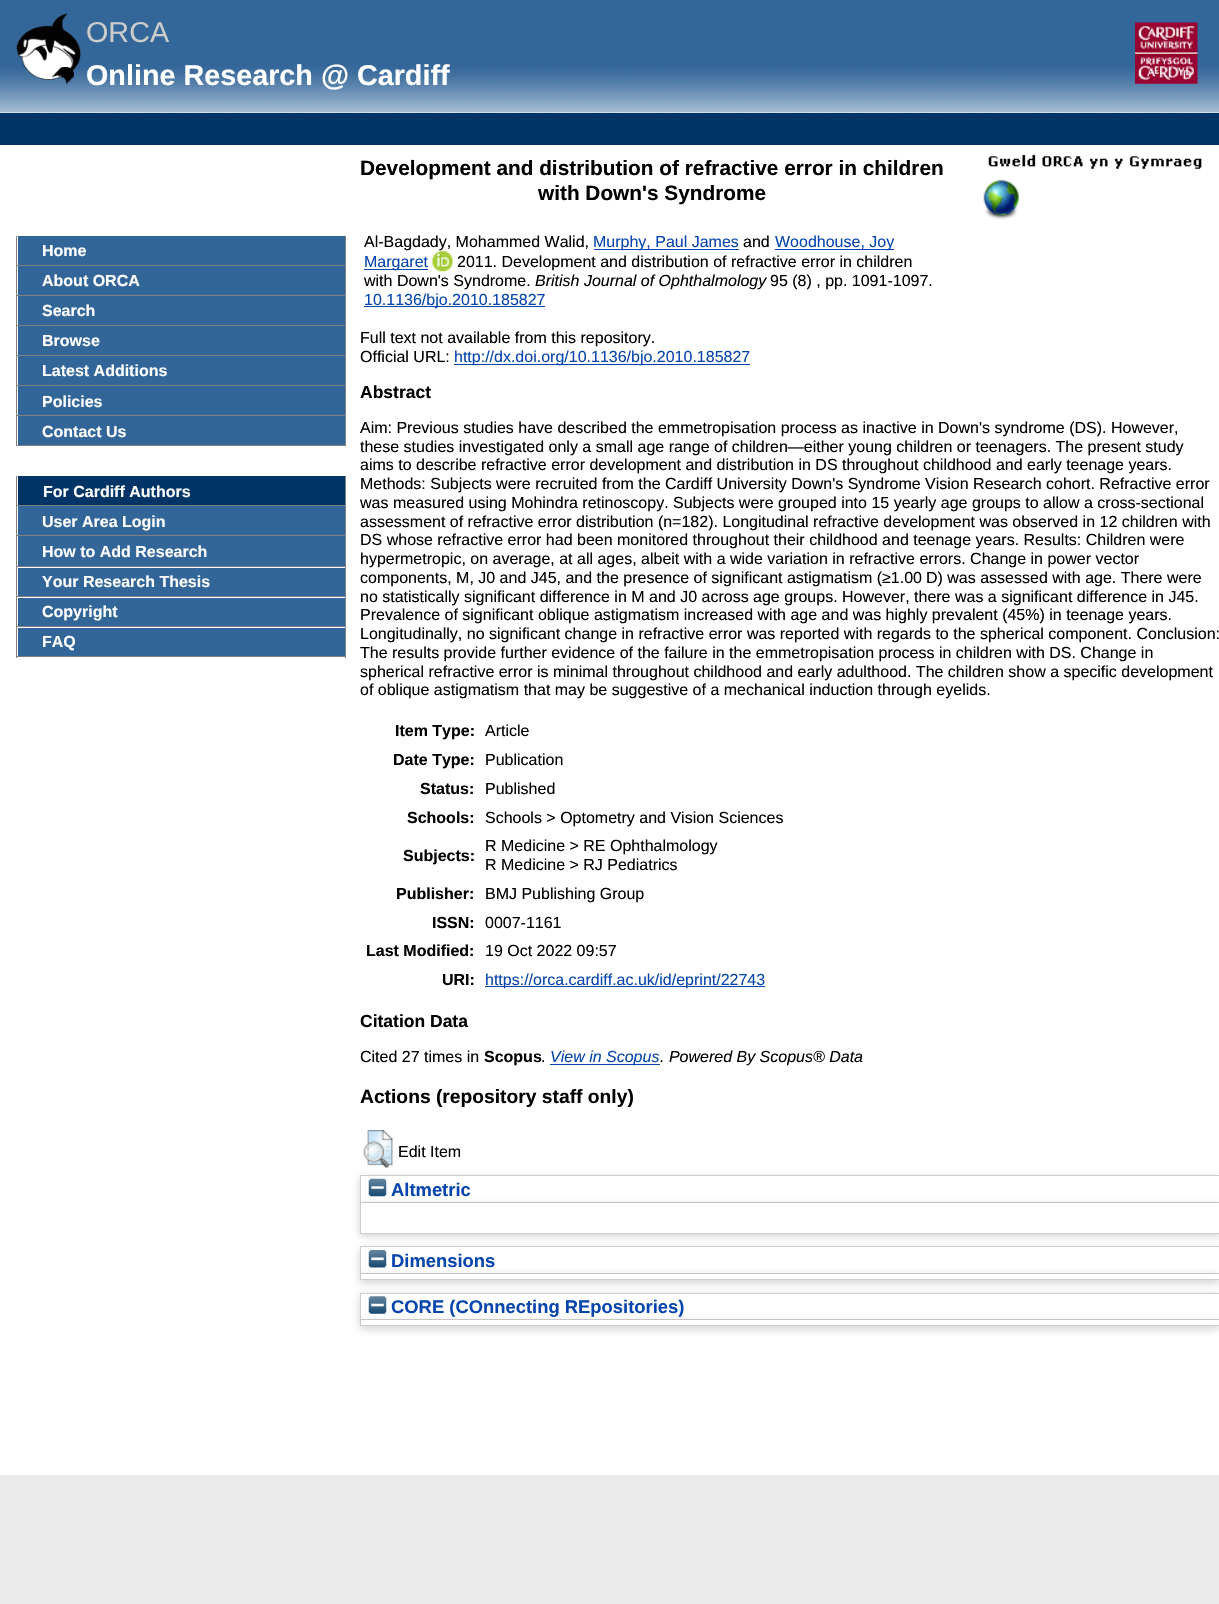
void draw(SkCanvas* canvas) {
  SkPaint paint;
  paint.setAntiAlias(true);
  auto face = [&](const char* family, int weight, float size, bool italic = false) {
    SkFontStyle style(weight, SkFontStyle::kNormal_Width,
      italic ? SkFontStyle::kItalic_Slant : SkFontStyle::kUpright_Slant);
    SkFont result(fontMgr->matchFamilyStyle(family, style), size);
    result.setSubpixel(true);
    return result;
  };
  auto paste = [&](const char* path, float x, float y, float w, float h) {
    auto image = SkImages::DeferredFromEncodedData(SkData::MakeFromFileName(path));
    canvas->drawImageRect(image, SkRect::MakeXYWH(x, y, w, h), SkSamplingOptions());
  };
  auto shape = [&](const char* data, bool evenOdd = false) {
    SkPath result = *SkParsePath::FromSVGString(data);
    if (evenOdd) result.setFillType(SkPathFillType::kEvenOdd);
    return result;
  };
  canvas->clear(0xffeaeaea);
  paint.setColor(0xffffffff);
  canvas->drawRect(SkRect::MakeXYWH(0, 112, 1219, 1363), paint);
  paste("img/1.png", 0, 0, 1219, 113);
  paste("img/2.png", 16, 13, 65, 71);
  paste("img/3.png", 1135, 22, 63, 62);
  paint.setColor(0xff003466);
  canvas->drawRect(SkRect::MakeXYWH(0, 113, 1219, 32), paint);
  paste("img/4.png", 988, 154, 214, 15);
  paste("img/5.png", 983, 180, 36, 40);
  {
    const struct { float x, y, w, h; SkColor color; } items[] = {
      {18, 236, 327, 29, 0xff326699},
      {345, 236, 1, 210, 0xff808080},
      {16, 265, 330, 1, 0xff808080},
      {16, 236, 1, 30, 0xff808080},
      {18, 266, 327, 29, 0xff326699},
      {16, 295, 330, 1, 0xff808080},
      {16, 266, 1, 30, 0xff808080},
      {18, 296, 327, 29, 0xff326699},
      {16, 325, 330, 1, 0xff808080},
      {16, 296, 1, 30, 0xff808080},
      {18, 326, 327, 29, 0xff326699},
      {16, 355, 330, 1, 0xff808080},
      {16, 326, 1, 30, 0xff808080},
      {18, 356, 327, 29, 0xff326699},
      {16, 385, 330, 1, 0xff808080},
      {16, 356, 1, 30, 0xff808080},
      {18, 386, 327, 29, 0xff326699},
      {16, 415, 330, 1, 0xff808080},
      {16, 386, 1, 30, 0xff808080},
      {18, 416, 327, 29, 0xff326699},
      {16, 445, 330, 1, 0xff808080},
      {16, 416, 1, 30, 0xff808080},
      {18, 476, 327, 29, 0xff003466},
      {345, 476, 1, 182, 0xff808080},
      {16, 505, 330, 1, 0xff808080},
      {16, 476, 1, 30, 0xff808080},
      {18, 506, 327, 29, 0xff326699},
      {16, 535, 330, 1, 0xff808080},
      {16, 506, 1, 30, 0xff808080},
      {18, 536, 327, 30, 0xff326699},
      {16, 566, 330, 1, 0xff808080},
      {16, 536, 1, 32, 0xff808080},
      {18, 568, 327, 28, 0xff326699},
      {16, 596, 330, 1, 0xff808080},
      {16, 568, 1, 30, 0xff808080},
      {18, 598, 327, 28, 0xff326699},
      {16, 626, 330, 1, 0xff808080},
      {16, 598, 1, 30, 0xff808080},
      {18, 628, 327, 28, 0xff326699},
      {16, 656, 330, 1, 0xff808080},
      {16, 628, 1, 30, 0xff808080},
      {594, 249, 145, 1, 0xff0645ad},
      {775, 249, 119, 1, 0xff0645ad},
      {364, 269, 64, 1, 0xff0645ad},
    };
    for (auto [x, y, w, h, color] : items) {
      paint.setColor(color);
      canvas->drawRect(SkRect::MakeXYWH(x, y, w, h), paint);
    }
  }
  paste("img/6.png", 432, 251, 21, 21);
  {
    const struct { float x, y, w, h; SkColor color; } items[] = {
      {364, 306, 181, 1, 0xff0645ad},
      {454, 364, 296, 1, 0xff0645ad},
      {485, 986, 280, 1, 0xff0645ad},
      {550, 1064, 110, 1, 0xff0645ad},
    };
    for (auto [x, y, w, h, color] : items) {
      paint.setColor(color);
      canvas->drawRect(SkRect::MakeXYWH(x, y, w, h), paint);
    }
  }
  paint.setColor(0x4d646464);
  paint.setMaskFilter(SkMaskFilter::MakeBlur(kNormal_SkBlurStyle, 4));
  canvas->drawRect(SkRect::MakeXYWH(360, 1178, 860, 27), paint);
  paint.setMaskFilter(nullptr);
  paste("img/7.png", 363, 1130, 30, 38);
  paint.setColor(0xffffffff);
  canvas->drawRect(SkRect::MakeXYWH(360.5f, 1175.5f, 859, 27), paint);
  paint.setStroke(true);
  paint.setStrokeWidth(1);
  paint.setColor(0xffcccccc);
  canvas->drawRect(SkRect::MakeXYWH(360.5f, 1175.5f, 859, 27), paint);
  paint.setStroke(false);
  paint.setColor(0x4d646464);
  paint.setMaskFilter(SkMaskFilter::MakeBlur(kNormal_SkBlurStyle, 4));
  canvas->drawRect(SkRect::MakeXYWH(360, 1205, 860, 31), paint);
  paint.setMaskFilter(nullptr);
  paste("img/8.png", 368, 1178, 19, 19);
  {
    const struct { float x, y, w, h; SkColor color; } items[] = {
      {361, 1203, 858, 30, 0xffffffff},
      {360, 1233, 859, 1, 0xffcccccc},
      {360, 1203, 1, 31, 0xffcccccc},
    };
    for (auto [x, y, w, h, color] : items) {
      paint.setColor(color);
      canvas->drawRect(SkRect::MakeXYWH(x, y, w, h), paint);
    }
  }
  paint.setColor(0x4d646464);
  paint.setMaskFilter(SkMaskFilter::MakeBlur(kNormal_SkBlurStyle, 4));
  canvas->drawRect(SkRect::MakeXYWH(360, 1249, 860, 27), paint);
  paint.setMaskFilter(nullptr);
  paint.setColor(0xffffffff);
  canvas->drawRect(SkRect::MakeXYWH(360.5f, 1246.5f, 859, 27), paint);
  paint.setStroke(true);
  paint.setColor(0xffcccccc);
  canvas->drawRect(SkRect::MakeXYWH(360.5f, 1246.5f, 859, 27), paint);
  paint.setStroke(false);
  paint.setColor(0x4d646464);
  paint.setMaskFilter(SkMaskFilter::MakeBlur(kNormal_SkBlurStyle, 4));
  canvas->drawRect(SkRect::MakeXYWH(360, 1276, 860, 7), paint);
  paint.setMaskFilter(nullptr);
  paste("img/9.png", 368, 1250, 19, 18);
  {
    const struct { float x, y, w, h; SkColor color; } items[] = {
      {360, 1274, 859, 5, 0xffffffff},
      {360, 1279, 859, 1, 0xffcccccc},
      {360, 1274, 1, 6, 0xffcccccc},
    };
    for (auto [x, y, w, h, color] : items) {
      paint.setColor(color);
      canvas->drawRect(SkRect::MakeXYWH(x, y, w, h), paint);
    }
  }
  canvas->save();
  canvas->clipPath(shape("M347 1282H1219V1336H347ZM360 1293H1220V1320H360Z", true), true);
  paint.setColor(0x4d646464);
  paint.setMaskFilter(SkMaskFilter::MakeBlur(kNormal_SkBlurStyle, 4));
  canvas->drawRect(SkRect::MakeXYWH(360, 1295, 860, 28), paint);
  paint.setMaskFilter(nullptr);
  canvas->restore();
  paint.setStroke(true);
  paint.setColor(0xffcccccc);
  canvas->drawRect(SkRect::MakeXYWH(360.5f, 1293.5f, 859, 26), paint);
  paint.setStroke(false);
  paint.setColor(0x4d646464);
  paint.setMaskFilter(SkMaskFilter::MakeBlur(kNormal_SkBlurStyle, 4));
  canvas->drawRect(SkRect::MakeXYWH(360, 1323, 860, 6), paint);
  paint.setMaskFilter(nullptr);
  paste("img/10.png", 368, 1296, 19, 18);
  {
    const struct { float x, y, w, h; SkColor color; } items[] = {
      {360, 1320, 859, 5, 0xffffffff},
      {360, 1325, 859, 1, 0xffcccccc},
      {360, 1320, 1, 6, 0xffcccccc},
    };
    for (auto [x, y, w, h, color] : items) {
      paint.setColor(color);
      canvas->drawRect(SkRect::MakeXYWH(x, y, w, h), paint);
    }
  }
  auto f0 = face("Liberation Sans", 400, 28.75f);
  canvas->drawString("ORCA", 86, 42, f0, paint);
  auto f1 = face("Liberation Sans", 700, 28.75f);
  paint.setColor(0xffffffff);
  canvas->drawString("Online Research @ Cardiff", 86, 85, f1, paint);
  auto f2 = face("Liberation Sans", 700, 16);
  {
    const struct { const char* s; float x, y; } items[] = {
      {"Home", 42, 256},
      {"About ORCA", 42, 286},
      {"Search", 42, 316},
      {"Browse", 42, 346},
      {"Latest Additions", 42, 376},
      {"Policies", 42, 407},
      {"Contact Us", 42, 437},
      {"For Cardiff Authors", 43, 497},
      {"User Area Login", 42, 527},
      {"How to Add Research", 42, 557},
      {"Your Research Thesis", 42, 587},
      {"Copyright", 42, 617},
      {"FAQ", 42, 647},
    };
    for (auto [s, x, y] : items) {
      canvas->drawString(s, x, y, f2, paint);
    }
  }
  auto f3 = face("Liberation Sans", 700, 20.8f);
  paint.setColor(0xff000000);
  canvas->drawString("Development and distribution of refractive error in children", 360, 175, f3, paint);
  canvas->drawString("with Down's Syndrome", 538, 200, f3, paint);
  auto f4 = face("Liberation Sans", 400, 16);
  canvas->drawString("Al-Bagdady, Mohammed Walid,", 364, 247, f4, paint);
  paint.setColor(0xff0645ad);
  canvas->drawString("Murphy, Paul James", 593, 247, f4, paint);
  paint.setColor(0xff000000);
  canvas->drawString("and", 743, 247, f4, paint);
  paint.setColor(0xff0645ad);
  canvas->drawString("Woodhouse, Joy", 775, 247, f4, paint);
  canvas->drawString("Margaret", 364, 267, f4, paint);
  paint.setColor(0xff000000);
  canvas->drawString("2011. Development and distribution of refractive error in children", 457, 267, f4, paint);
  canvas->drawString("with Down's Syndrome.", 364, 286, f4, paint);
  auto f5 = face("Liberation Sans", 400, 16, true);
  canvas->drawString("British Journal of Ophthalmology", 535, 286, f5, paint);
  canvas->drawString("95 (8) , pp. 1091-1097.", 770, 286, f4, paint);
  paint.setColor(0xff0645ad);
  canvas->drawString("10.1136/bjo.2010.185827", 364, 305, f4, paint);
  paint.setColor(0xff000000);
  canvas->drawString("Full text not available from this repository.", 360, 343, f4, paint);
  canvas->drawString("Official URL:", 360, 362, f4, paint);
  paint.setColor(0xff0645ad);
  canvas->drawString("http://dx.doi.org/10.1136/bjo.2010.185827", 454, 362, f4, paint);
  auto f6 = face("Liberation Sans", 700, 17.5f);
  paint.setColor(0xff000000);
  canvas->drawString("Abstract", 360, 398, f6, paint);
  {
    const struct { const char* s; float x, y; } items[] = {
      {"Aim: Previous studies have described the emmetropisation process as inactive in Down's syndrome (DS). However,", 360, 433},
      {"these studies investigated only a small age range of children—either young children or teenagers. The present study", 360, 452},
      {"aims to describe refractive error development and distribution in DS throughout childhood and early teenage years.", 360, 470},
      {"Methods: Subjects were recruited from the Cardiff University Down's Syndrome Vision Research cohort. Refractive error", 360, 489},
      {"was measured using Mohindra retinoscopy. Subjects were grouped into 15 yearly age groups to allow a cross-sectional", 360, 508},
      {"assessment of refractive error distribution (n=182). Longitudinal refractive development was observed in 12 children with", 360, 527},
      {"DS whose refractive error had been monitored throughout their childhood and teenage years. Results: Children were", 360, 545},
      {"hypermetropic, on average, at all ages, albeit with a wide variation in refractive errors. Change in power vector", 360, 564},
      {"components, M, J0 and J45, and the presence of significant astigmatism (≥1.00 D) was assessed with age. There were", 360, 583},
      {"no statistically significant difference in M and J0 across age groups. However, there was a significant difference in J45.", 360, 602},
      {"Prevalence of significant oblique astigmatism increased with age and was highly prevalent (45%) in teenage years.", 360, 620},
      {"Longitudinally, no significant change in refractive error was reported with regards to the spherical component. Conclusion:", 360, 639},
      {"The results provide further evidence of the failure in the emmetropisation process in children with DS. Change in", 360, 658},
      {"spherical refractive error is minimal throughout childhood and early adulthood. The children show a specific development", 360, 677},
      {"of oblique astigmatism that may be suggestive of a mechanical induction through eyelids.", 360, 695},
    };
    for (auto [s, x, y] : items) {
      canvas->drawString(s, x, y, f4, paint);
    }
  }
  canvas->drawString("Item Type:", 395, 736, f2, paint);
  canvas->drawString("Article", 485, 736, f4, paint);
  canvas->drawString("Date Type:", 393, 765, f2, paint);
  canvas->drawString("Publication", 485, 765, f4, paint);
  canvas->drawString("Status:", 420, 794, f2, paint);
  canvas->drawString("Published", 485, 794, f4, paint);
  canvas->drawString("Schools:", 407, 823, f2, paint);
  canvas->drawString("Schools > Optometry and Vision Sciences", 485, 823, f4, paint);
  canvas->drawString("Subjects:", 403, 861, f2, paint);
  canvas->drawString("R Medicine > RE Ophthalmology", 485, 851, f4, paint);
  canvas->drawString("R Medicine > RJ Pediatrics", 485, 870, f4, paint);
  canvas->drawString("Publisher:", 396, 899, f2, paint);
  canvas->drawString("BMJ Publishing Group", 485, 899, f4, paint);
  canvas->drawString("ISSN:", 432, 928, f2, paint);
  canvas->drawString("0007-1161", 485, 928, f4, paint);
  canvas->drawString("Last Modified:", 366, 956, f2, paint);
  canvas->drawString("19 Oct 2022 09:57", 485, 956, f4, paint);
  canvas->drawString("URI:", 442, 985, f2, paint);
  paint.setColor(0xff0645ad);
  canvas->drawString("https://orca.cardiff.ac.uk/id/eprint/22743", 485, 985, f4, paint);
  paint.setColor(0xff000000);
  canvas->drawString("Citation Data", 360, 1027, f6, paint);
  canvas->drawString("Cited 27 times in", 360, 1062, f4, paint);
  canvas->drawString("Scopus", 484, 1062, f2, paint);
  canvas->drawString(".", 541, 1062, f4, paint);
  paint.setColor(0xff0645ad);
  canvas->drawString("View in Scopus", 550, 1062, f5, paint);
  paint.setColor(0xff000000);
  canvas->drawString(". Powered By Scopus® Data", 660, 1062, f5, paint);
  auto f7 = face("Liberation Sans", 700, 19.25f);
  canvas->drawString("Actions (repository staff only)", 360, 1103, f7, paint);
  canvas->drawString("Edit Item", 398, 1157, f4, paint);
  auto f8 = face("Liberation Sans", 700, 18.4f);
  paint.setColor(0xff0645ad);
  {
    const struct { const char* s; float x, y; } items[] = {
      {"Altmetric", 391, 1196},
      {"Dimensions", 391, 1267},
      {"CORE (COnnecting REpositories)", 391, 1313},
    };
    for (auto [s, x, y] : items) {
      canvas->drawString(s, x, y, f8, paint);
    }
  }
}
